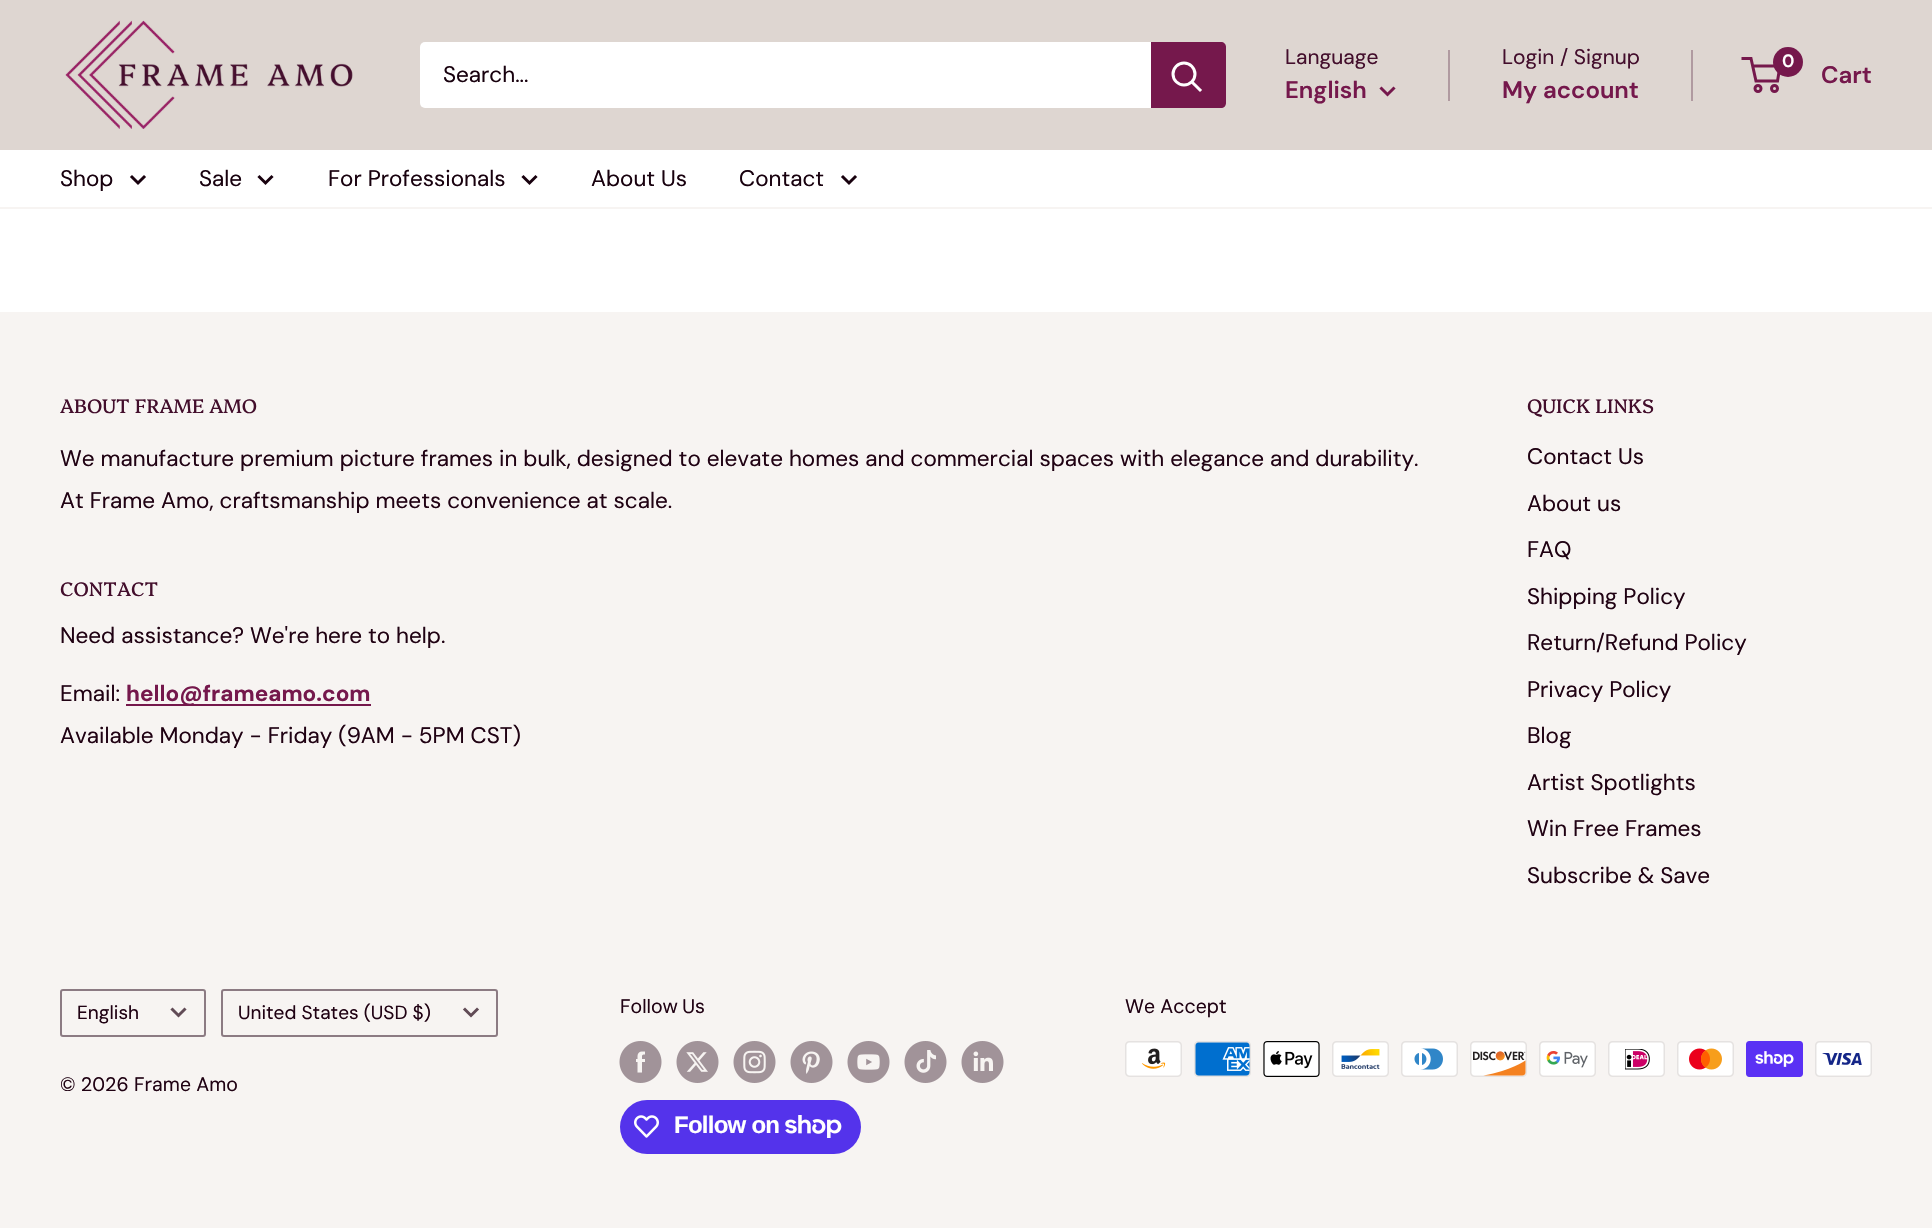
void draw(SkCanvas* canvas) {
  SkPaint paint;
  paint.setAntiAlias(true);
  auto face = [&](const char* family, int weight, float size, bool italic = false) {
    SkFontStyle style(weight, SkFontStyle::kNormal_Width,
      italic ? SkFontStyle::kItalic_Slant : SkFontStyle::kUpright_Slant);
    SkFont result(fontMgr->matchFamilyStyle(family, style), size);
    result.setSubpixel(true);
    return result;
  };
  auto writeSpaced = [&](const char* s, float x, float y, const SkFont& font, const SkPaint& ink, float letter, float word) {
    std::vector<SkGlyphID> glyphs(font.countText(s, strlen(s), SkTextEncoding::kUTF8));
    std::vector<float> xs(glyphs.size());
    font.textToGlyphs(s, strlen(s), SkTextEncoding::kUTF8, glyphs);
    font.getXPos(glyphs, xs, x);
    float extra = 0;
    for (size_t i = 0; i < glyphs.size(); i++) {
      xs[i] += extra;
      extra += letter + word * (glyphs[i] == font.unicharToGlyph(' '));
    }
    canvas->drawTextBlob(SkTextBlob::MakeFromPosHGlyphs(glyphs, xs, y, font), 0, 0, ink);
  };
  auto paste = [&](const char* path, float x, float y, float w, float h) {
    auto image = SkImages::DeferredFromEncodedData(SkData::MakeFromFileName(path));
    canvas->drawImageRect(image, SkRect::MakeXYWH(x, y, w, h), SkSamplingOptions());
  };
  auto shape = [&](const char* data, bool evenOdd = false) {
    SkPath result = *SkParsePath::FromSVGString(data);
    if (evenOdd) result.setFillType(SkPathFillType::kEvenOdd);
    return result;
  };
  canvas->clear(0xffffffff);
  paint.setColor(0xffded6d1);
  canvas->drawRect(SkRect::MakeXYWH(0, 0, 1932, 150), paint);
  paste("img/1.png", 65, 20, 288, 109);
  paint.setColor(0xffffffff);
  canvas->drawRoundRect(SkRect::MakeXYWH(420, 42, 806, 66), 5, 5, paint);
  paint.setColor(0xff75184c);
  canvas->drawPath(shape("M1151 42H1221C1224 42 1226 44 1226 47V103C1226 106 1224 108 1221 108H1151Z"), paint);
  paint.setStroke(true);
  paint.setStrokeWidth(3);
  paint.setStrokeCap(SkPaint::kSquare_Cap);
  paint.setColor(0xffffffff);
  canvas->drawPath(shape("M1200 90L1192.5 82.5"), paint);
  paint.setStrokeCap(SkPaint::kButt_Cap);
  canvas->drawCircle(1184, 74, 11, paint);
  paint.setStrokeCap(SkPaint::kSquare_Cap);
  paint.setColor(0xff75184c);
  canvas->drawPath(shape("M1393.5 88.5L1387.5 94.5L1381.5 88.5"), paint);
  paint.setStroke(false);
  paint.setColor(0xffb09aa0);
  canvas->drawRect(SkRect::MakeXYWH(1448, 50, 2, 51), paint);
  canvas->drawRect(SkRect::MakeXYWH(1691, 50, 2, 51), paint);
  paint.setStroke(true);
  paint.setStrokeCap(SkPaint::kButt_Cap);
  paint.setColor(0xff75184c);
  canvas->drawCircle(1758, 88.5f, 3, paint);
  canvas->drawCircle(1774.5f, 88.5f, 3, paint);
  canvas->drawPath(shape("M1752.5 66H1780L1777.5 81H1756L1751 58.5H1741.5"), paint);
  paint.setStroke(false);
  canvas->drawCircle(1788, 62, 15, paint);
  paint.setColor(0xfff7f4f2);
  canvas->drawRect(SkRect::MakeXYWH(0, 207, 1932, 2), paint);
  paint.setStroke(true);
  paint.setStrokeCap(SkPaint::kSquare_Cap);
  paint.setColor(0xff18010e);
  canvas->drawPath(shape("M144 177L138 183L132 177"), paint);
  canvas->drawPath(shape("M271.5 177L265.5 183L259.5 177"), paint);
  canvas->drawPath(shape("M535.5 177L529.5 183L523.5 177"), paint);
  canvas->drawPath(shape("M855 177L849 183L843 177"), paint);
  paint.setStroke(false);
  paint.setColor(0xfff7f4f2);
  canvas->drawRect(SkRect::MakeXYWH(0, 312, 1932, 916), paint);
  paint.setColor(0xff75184c);
  canvas->drawRect(SkRect::MakeXYWH(126, 704, 245, 2), paint);
  paint.setStroke(true);
  paint.setStrokeWidth(2);
  paint.setStrokeCap(SkPaint::kButt_Cap);
  paint.setColor(0xff8c7b83);
  canvas->drawRoundRect(SkRect::MakeXYWH(61, 990, 144, 46), 2, 2, paint);
  paint.setStrokeWidth(3);
  paint.setStrokeCap(SkPaint::kSquare_Cap);
  paint.setColor(0xff614b56);
  canvas->drawPath(shape("M184.5 1009.5L178.5 1015.5L172.5 1009.5"), paint);
  paint.setStrokeWidth(2);
  paint.setStrokeCap(SkPaint::kButt_Cap);
  paint.setColor(0xff8c7b83);
  canvas->drawRoundRect(SkRect::MakeXYWH(222, 990, 275, 46), 2, 2, paint);
  paint.setStrokeWidth(3);
  paint.setStrokeCap(SkPaint::kSquare_Cap);
  paint.setColor(0xff614b56);
  canvas->drawPath(shape("M477 1009.5L471 1015.5L465 1009.5"), paint);
  paste("img/2.png", 619, 1041, 43, 42);
  paste("img/3.png", 676, 1041, 43, 42);
  paste("img/4.png", 733, 1041, 43, 42);
  paste("img/5.png", 790, 1041, 43, 42);
  paste("img/6.png", 847, 1041, 43, 42);
  paste("img/7.png", 904, 1041, 43, 42);
  paste("img/8.png", 961, 1041, 43, 42);
  paint.setStroke(false);
  paint.setColor(0xff5433eb);
  canvas->drawRoundRect(SkRect::MakeXYWH(620, 1100, 241, 54), 27, 27, paint);
  paste("img/9.png", 634, 1115, 25, 23);
  paste("img/10.png", 785, 1115, 57, 23);
  paste("img/11.png", 1125, 1041, 57, 36);
  paste("img/12.png", 1194, 1041, 57, 36);
  paste("img/13.png", 1263, 1041, 57, 36);
  paste("img/14.png", 1332, 1041, 57, 36);
  paste("img/15.png", 1401, 1041, 57, 36);
  paste("img/16.png", 1470, 1041, 57, 36);
  paste("img/17.png", 1539, 1041, 57, 36);
  paste("img/18.png", 1608, 1041, 57, 36);
  paste("img/19.png", 1677, 1041, 57, 36);
  paste("img/20.png", 1746, 1041, 57, 36);
  paste("img/21.png", 1815, 1041, 57, 36);
  auto f0 = face("DM Sans", 400, 22.5f);
  paint.setColor(0xff18010e);
  canvas->drawString("Search...", 443, 82, f0, paint);
  auto f1 = face("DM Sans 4", 400, 21);
  paint.setColor(0xff430e2c);
  canvas->drawString("Language", 1285, 64, f1, paint);
  auto f2 = face("DM Sans", 600, 24);
  paint.setColor(0xff75184c);
  canvas->drawString("English", 1285, 98, f2, paint);
  paint.setColor(0xff430e2c);
  canvas->drawString("Login / Signup", 1502, 64, f1, paint);
  paint.setColor(0xff75184c);
  canvas->drawString("My account", 1502, 98, f2, paint);
  auto f3 = face("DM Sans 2", 600, 18);
  paint.setColor(0xffffffff);
  canvas->drawString("0", 1782, 67, f3, paint);
  paint.setColor(0xff75184c);
  canvas->drawString("Cart", 1821, 83, f2, paint);
  paint.setColor(0xff18010e);
  {
    const struct { const char* s; float x, y; } items[] = {
      {"Shop", 60, 186},
      {"Sale", 199, 186},
      {"For Professionals", 328, 186},
      {"About Us", 591, 186},
      {"Contact", 739, 186},
    };
    for (auto [s, x, y] : items) {
      canvas->drawString(s, x, y, f0, paint);
    }
  }
  auto f4 = face("Platypi", 400, 19.5f);
  paint.setColor(0xff430e2c);
  canvas->drawString("ABOUT FRAME AMO", 60, 413, f4, paint);
  paint.setColor(0xff200213);
  canvas->drawString("We manufacture premium picture frames in bulk, designed to elevate homes and commercial spaces with elegance and durability.", 60, 466, f0, paint);
  canvas->drawString("At Frame Amo, craftsmanship meets convenience at scale.", 60, 508, f0, paint);
  paint.setColor(0xff430e2c);
  canvas->drawString("CONTACT", 60, 596, f4, paint);
  paint.setColor(0xff200213);
  canvas->drawString("Need assistance? We're here to help.", 60, 643, f0, paint);
  canvas->drawString("Email:", 60, 701, f0, paint);
  auto f5 = face("DM Sans", 700, 22.5f);
  paint.setColor(0xff75184c);
  canvas->drawString("hello@frameamo.com", 126, 701, f5, paint);
  paint.setColor(0xff200213);
  canvas->drawString("Available Monday - Friday (9AM - 5PM CST)", 60, 743, f0, paint);
  paint.setColor(0xff430e2c);
  canvas->drawString("QUICK LINKS", 1527, 413, f4, paint);
  paint.setColor(0xff200213);
  {
    const struct { const char* s; float x, y; } items[] = {
      {"Contact Us", 1527, 464},
      {"About us", 1527, 511},
      {"FAQ", 1527, 557},
      {"Shipping Policy", 1527, 604},
      {"Return/Refund Policy", 1527, 650},
      {"Privacy Policy", 1527, 697},
      {"Blog", 1527, 743},
      {"Artist Spotlights", 1527, 790},
      {"Win Free Frames", 1527, 836},
      {"Subscribe & Save", 1527, 883},
    };
    for (auto [s, x, y] : items) {
      canvas->drawString(s, x, y, f0, paint);
    }
  }
  auto f6 = face("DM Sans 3", 400, 19.1f);
  canvas->drawString("English", 77, 1019, f6, paint);
  canvas->drawString("United States (USD $)", 238, 1019, f6, paint);
  auto f7 = face("DM Sans 2", 400, 19.5f);
  canvas->drawString("© 2026 Frame Amo", 60, 1091, f7, paint);
  writeSpaced("Follow Us", 620, 1013, f7, paint, 0, -1);
  auto f8 = face("Liberation Sans", 700, 24);
  paint.setColor(0xffffffff);
  writeSpaced("Follow on", 674, 1133, f8, paint, -0.75f, 0);
  paint.setColor(0xff200213);
  canvas->drawString("We Accept", 1125, 1013, f7, paint);
}
